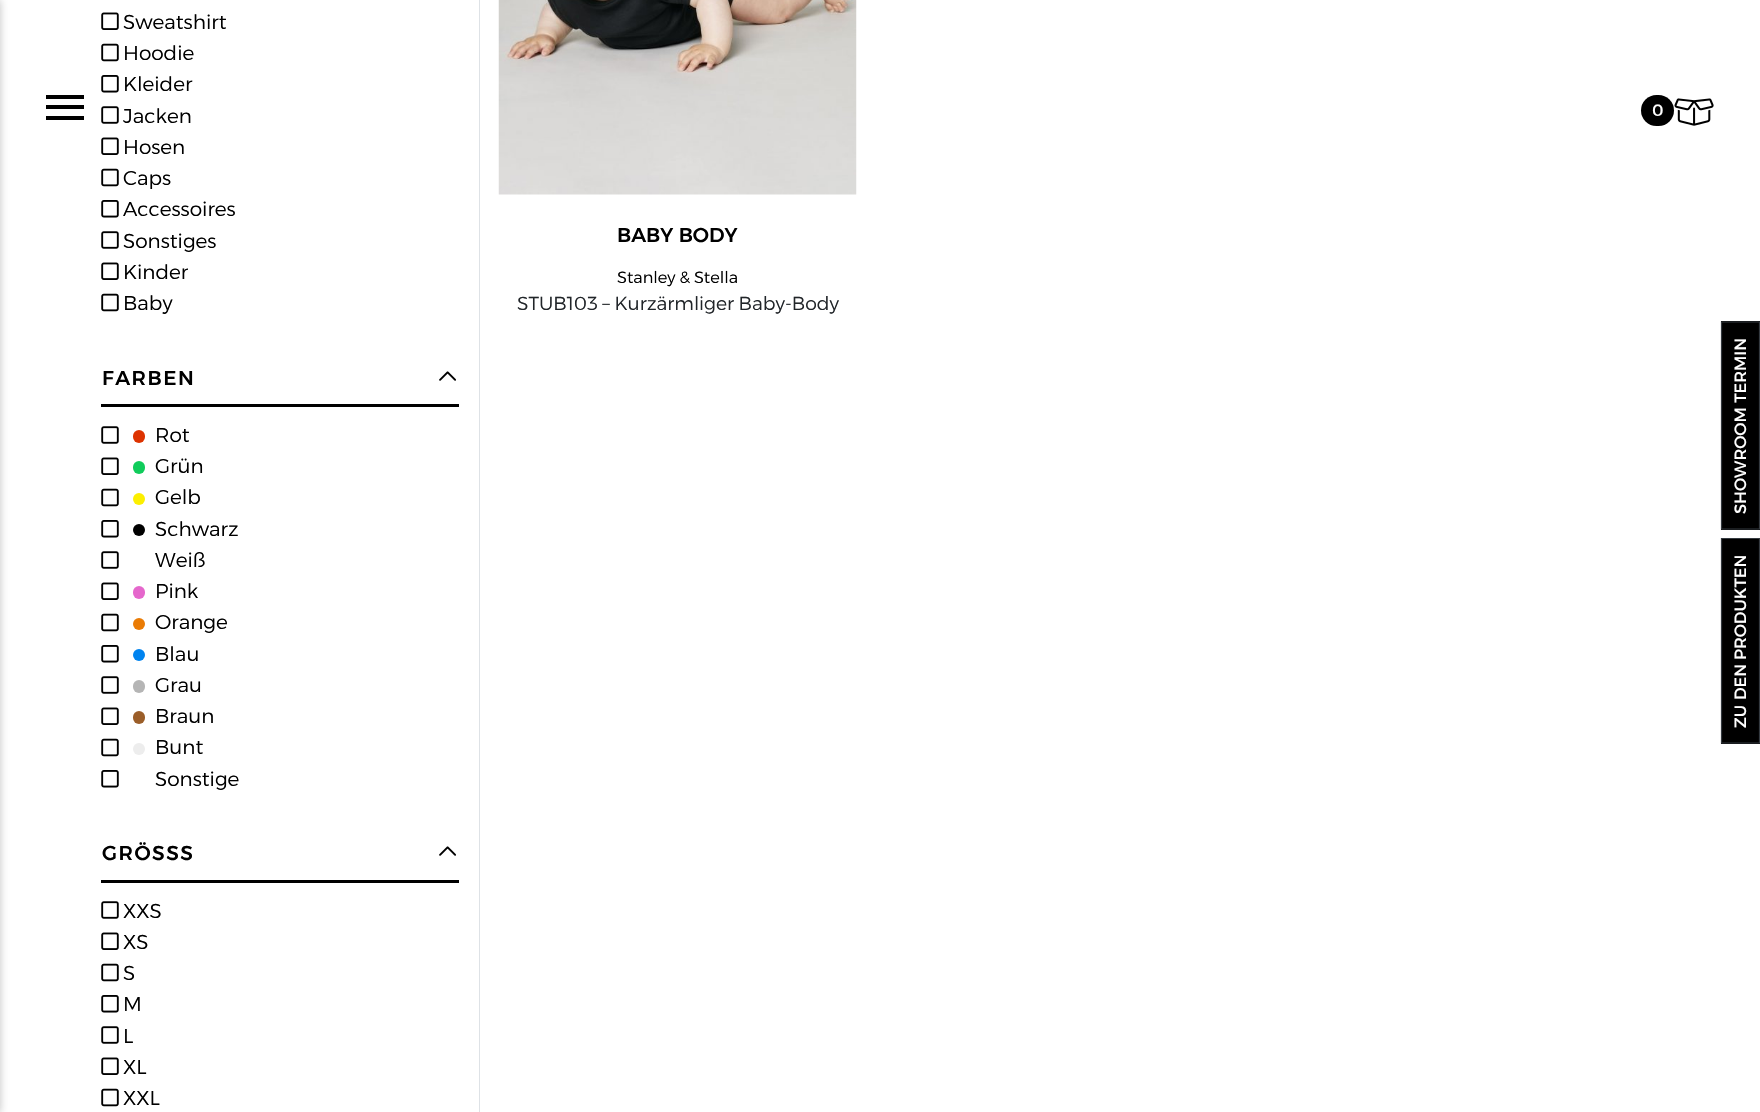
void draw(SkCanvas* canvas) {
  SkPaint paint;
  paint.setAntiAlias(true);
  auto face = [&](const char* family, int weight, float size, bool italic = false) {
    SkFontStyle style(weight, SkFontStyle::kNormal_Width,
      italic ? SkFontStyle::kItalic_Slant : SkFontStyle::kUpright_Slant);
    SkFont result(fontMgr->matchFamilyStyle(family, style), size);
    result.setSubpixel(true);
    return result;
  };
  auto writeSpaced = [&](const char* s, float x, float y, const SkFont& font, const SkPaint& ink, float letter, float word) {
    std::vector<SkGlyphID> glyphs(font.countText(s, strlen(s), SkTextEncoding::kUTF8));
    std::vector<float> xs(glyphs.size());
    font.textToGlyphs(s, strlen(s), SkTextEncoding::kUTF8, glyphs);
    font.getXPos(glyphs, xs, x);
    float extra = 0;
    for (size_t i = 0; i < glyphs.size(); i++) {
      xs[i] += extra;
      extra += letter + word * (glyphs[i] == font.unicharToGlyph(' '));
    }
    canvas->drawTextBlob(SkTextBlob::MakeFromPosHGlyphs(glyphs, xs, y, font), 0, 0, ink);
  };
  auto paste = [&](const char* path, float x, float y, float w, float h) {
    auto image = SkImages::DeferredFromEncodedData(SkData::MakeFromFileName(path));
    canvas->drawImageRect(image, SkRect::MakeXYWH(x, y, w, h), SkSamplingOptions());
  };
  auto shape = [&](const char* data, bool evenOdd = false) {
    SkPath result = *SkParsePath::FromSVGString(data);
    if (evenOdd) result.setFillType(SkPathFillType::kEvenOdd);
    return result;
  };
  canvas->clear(0xffffffff);
  paint.setColor(0xffdee2e6);
  canvas->drawRect(SkRect::MakeXYWH(479, 0, 1, 1112), paint);
  paste("img/1.png", 101, 12, 18, 18);
  paste("img/2.png", 101, 43, 18, 19);
  paste("img/3.png", 101, 75, 18, 18);
  paste("img/4.png", 101, 106, 18, 18);
  paste("img/1.png", 101, 137, 18, 18);
  paste("img/2.png", 101, 168, 18, 19);
  paste("img/3.png", 101, 200, 18, 18);
  paste("img/4.png", 101, 231, 18, 18);
  paste("img/1.png", 101, 262, 18, 18);
  paste("img/2.png", 101, 293, 18, 19);
  paint.setColor(0xff000000);
  canvas->drawRect(SkRect::MakeXYWH(101, 404, 358, 3), paint);
  paste("img/5.png", 439, 371, 17, 10);
  paste("img/4.png", 101, 426, 18, 18);
  paint.setColor(0xffdd3300);
  canvas->drawRoundRect(SkRect::MakeXYWH(133, 430, 12, 13), 6, 6, paint);
  paste("img/1.png", 101, 457, 18, 18);
  paint.setColor(0xff10cc5b);
  canvas->drawRoundRect(SkRect::MakeXYWH(133, 461, 12, 13), 6, 6, paint);
  paste("img/2.png", 101, 488, 18, 19);
  paint.setColor(0xfffcef00);
  canvas->drawCircle(139, 499, 6, paint);
  paste("img/3.png", 101, 520, 18, 18);
  paint.setColor(0xff000000);
  canvas->drawCircle(139, 530, 6, paint);
  paste("img/4.png", 101, 551, 18, 18);
  paste("img/1.png", 101, 582, 18, 18);
  paint.setColor(0xffe567cc);
  canvas->drawRoundRect(SkRect::MakeXYWH(133, 586, 12, 13), 6, 6, paint);
  paste("img/2.png", 101, 613, 18, 19);
  paint.setColor(0xffea7b04);
  canvas->drawCircle(139, 624, 6, paint);
  paste("img/3.png", 101, 645, 18, 18);
  paint.setColor(0xff0083ef);
  canvas->drawCircle(139, 655, 6, paint);
  paste("img/4.png", 101, 676, 18, 18);
  paint.setColor(0xffb5b5b5);
  canvas->drawRoundRect(SkRect::MakeXYWH(133, 680, 12, 13), 6, 6, paint);
  paste("img/1.png", 101, 707, 18, 18);
  paint.setColor(0xff9b5e29);
  canvas->drawRoundRect(SkRect::MakeXYWH(133, 711, 12, 13), 6, 6, paint);
  paste("img/2.png", 101, 738, 18, 19);
  paint.setColor(0xffededed);
  canvas->drawCircle(139, 749, 6, paint);
  paste("img/3.png", 101, 770, 18, 18);
  paint.setColor(0xff000000);
  canvas->drawRect(SkRect::MakeXYWH(101, 880, 358, 3), paint);
  paste("img/5.png", 439, 846, 17, 10);
  paste("img/4.png", 101, 901, 18, 18);
  paste("img/1.png", 101, 932, 18, 18);
  paste("img/2.png", 101, 963, 18, 19);
  paste("img/3.png", 101, 995, 18, 18);
  paste("img/4.png", 101, 1026, 18, 18);
  paste("img/1.png", 101, 1057, 18, 18);
  paste("img/2.png", 101, 1088, 18, 19);
  paste("img/6.png", 498, 0, 359, 195);
  paint.setColor(0x3d000000);
  paint.setMaskFilter(SkMaskFilter::MakeBlur(kNormal_SkBlurStyle, 4));
  canvas->drawRect(SkRect::MakeXYWH(-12, 0, 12, 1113), paint);
  paint.setMaskFilter(nullptr);
  {
    const struct { float x, y, w, h; SkColor color; } items[] = {
      {46, 95, 38, 4, 0xff000000},
      {46, 105, 38, 4, 0xff000000},
      {46, 116, 38, 4, 0xff000000},
    };
    for (auto [x, y, w, h, color] : items) {
      paint.setColor(color);
      canvas->drawRect(SkRect::MakeXYWH(x, y, w, h), paint);
    }
  }
  canvas->drawRoundRect(SkRect::MakeXYWH(1641, 95, 33, 31), 15.5f, 15.5f, paint);
  paste("img/7.png", 1674, 98, 40, 28);
  canvas->drawRect(SkRect::MakeXYWH(1721, 321, 39, 209), paint);
  paint.setStroke(true);
  paint.setStrokeWidth(1.2f);
  paint.setColor(0xff343a40);
  canvas->drawPath(shape("M1721.5 529V322H1759.5V529Z"), paint);
  paint.setStroke(false);
  paint.setColor(0xff000000);
  canvas->drawRect(SkRect::MakeXYWH(1721, 539, 39, 205), paint);
  paint.setStroke(true);
  paint.setColor(0xff343a40);
  canvas->drawPath(shape("M1721.5 743V538.5H1759.5V743Z"), paint);
  auto f0 = face("Alexandria", 300, 20);
  paint.setStroke(false);
  paint.setColor(0xff000000);
  {
    const struct { const char* s; float x, y; } items[] = {
      {"Sweatshirt", 123, 29},
      {"Hoodie", 123, 60},
      {"Kleider", 123, 91},
      {"Jacken", 123, 123},
      {"Hosen", 123, 154},
      {"Caps", 123, 185},
      {"Accessoires", 123, 216},
      {"Sonstiges", 123, 248},
      {"Kinder", 123, 279},
      {"Baby", 123, 310},
    };
    for (auto [s, x, y] : items) {
      canvas->drawString(s, x, y, f0, paint);
    }
  }
  auto f1 = face("Alexandria", 500, 20);
  writeSpaced("FARBEN", 102, 385, f1, paint, 1.5f, 0);
  {
    const struct { const char* s; float x, y; } items[] = {
      {"Rot", 155, 442},
      {"Grün", 155, 473},
      {"Gelb", 155, 504},
      {"Schwarz", 155, 536},
      {"Weiß", 155, 567},
      {"Pink", 155, 598},
      {"Orange", 155, 629},
      {"Blau", 155, 661},
      {"Grau", 155, 692},
      {"Braun", 155, 723},
      {"Bunt", 155, 754},
      {"Sonstige", 155, 786},
    };
    for (auto [s, x, y] : items) {
      canvas->drawString(s, x, y, f0, paint);
    }
  }
  writeSpaced("GRÖSSS", 102, 860, f1, paint, 1.5f, 0);
  {
    const struct { const char* s; float x, y; } items[] = {
      {"XXS", 123, 918},
      {"XS", 123, 949},
      {"S", 123, 980},
      {"M", 123, 1011},
      {"L", 123, 1043},
      {"XL", 123, 1074},
      {"XXL", 123, 1105},
    };
    for (auto [s, x, y] : items) {
      canvas->drawString(s, x, y, f0, paint);
    }
  }
  canvas->drawString("BABY BODY", 617, 242, f1, paint);
  auto f2 = face("Alexandria", 300, 16.25f);
  canvas->drawString("Stanley & Stella", 617, 283, f2, paint);
  auto f3 = face("Alexandria", 300, 18.75f);
  paint.setColor(0xff212529);
  canvas->drawString("STUB103 – Kurzärmliger Baby-Body", 517, 310, f3, paint);
  auto f4 = face("Alexandria", 400, 16.25f);
  paint.setColor(0xffffffff);
  canvas->drawString("0", 1652, 116, f4, paint);
  canvas->save();
  canvas->rotate(-90, 1746, 514);
  canvas->drawString("SHOWROOM TERMIN", 1746, 514, f4, paint);
  canvas->restore();
  canvas->save();
  canvas->rotate(-90, 1746, 660);
  canvas->drawString("PRODUKTEN", 1746, 660, f4, paint);
  canvas->restore();
  canvas->save();
  canvas->rotate(-90, 1746, 700);
  canvas->drawString("DEN", 1746, 700, f4, paint);
  canvas->restore();
  canvas->save();
  canvas->rotate(-90, 1746, 728);
  canvas->drawString("ZU", 1746, 728, f4, paint);
  canvas->restore();
}
